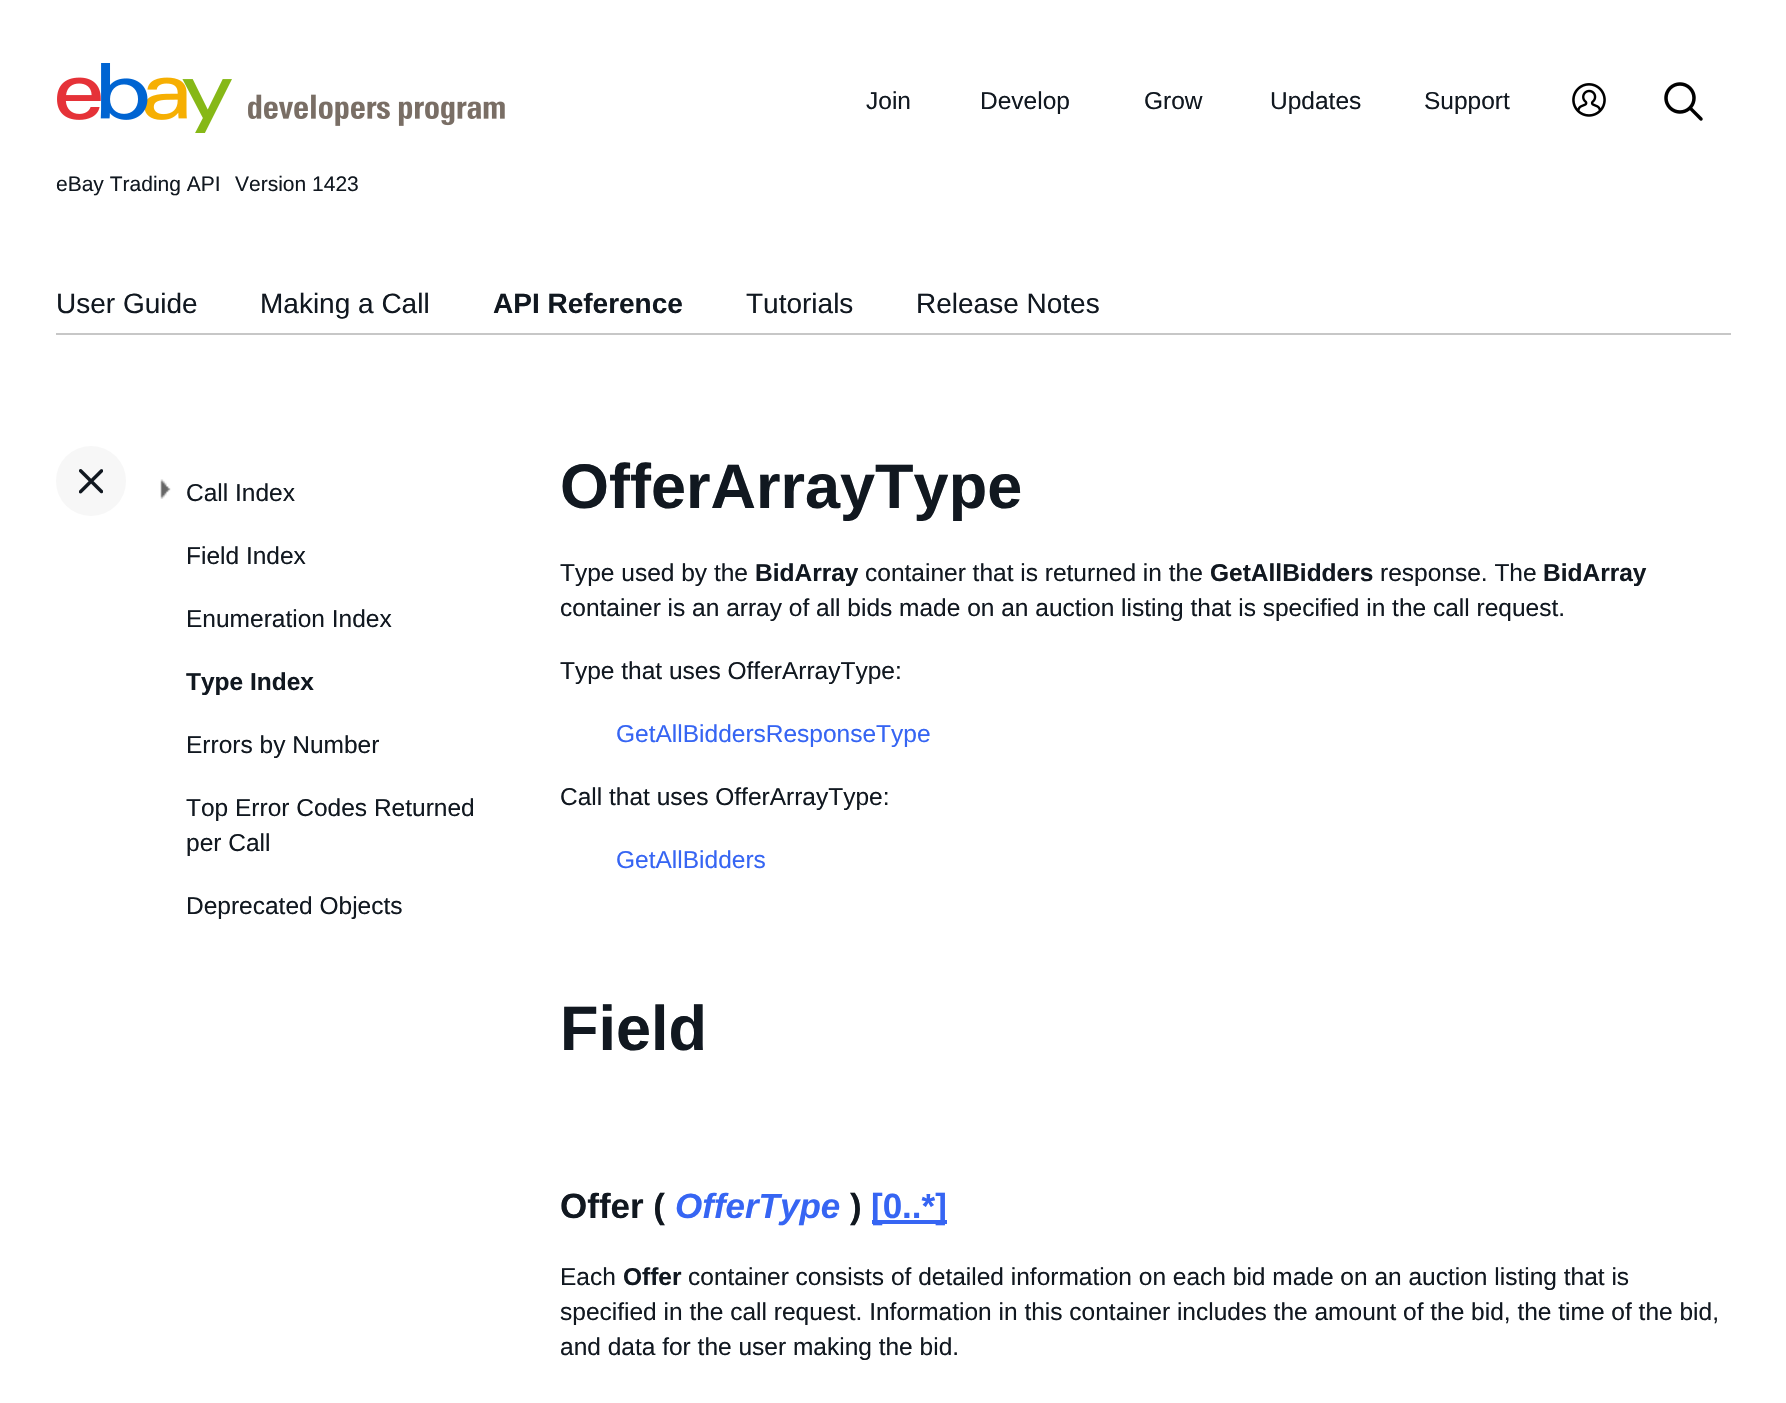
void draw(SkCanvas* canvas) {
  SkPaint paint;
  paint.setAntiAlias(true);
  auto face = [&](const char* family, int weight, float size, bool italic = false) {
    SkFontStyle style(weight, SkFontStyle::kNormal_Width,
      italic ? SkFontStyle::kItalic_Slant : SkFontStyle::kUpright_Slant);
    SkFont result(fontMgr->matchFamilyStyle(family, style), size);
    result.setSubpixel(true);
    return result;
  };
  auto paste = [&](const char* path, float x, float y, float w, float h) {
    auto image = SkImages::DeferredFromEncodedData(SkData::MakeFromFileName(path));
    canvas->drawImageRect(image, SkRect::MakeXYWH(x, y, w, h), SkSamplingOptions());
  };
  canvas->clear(0xffffffff);
  paste("img/1.png", 57, 63, 448, 70);
  paste("img/2.png", 1572, 83, 34, 34);
  paste("img/3.png", 1664, 82, 39, 39);
  paint.setColor(0xffc7c7c7);
  canvas->drawRect(SkRect::MakeXYWH(56, 333, 1675, 2), paint);
  paint.setColor(0xfff7f7f7);
  canvas->drawCircle(91, 481, 35, paint);
  paste("img/4.png", 79, 469, 24, 25);
  paste("img/5.png", 160, 479, 11, 20);
  paint.setColor(0xff3665f3);
  canvas->drawRect(SkRect::MakeXYWH(872, 1220, 75, 4), paint);
  auto f0 = face("Liberation Sans", 400, 24.5f);
  paint.setColor(0xff111820);
  {
    const struct { const char* s; float x, y; } items[] = {
      {"Join", 866, 109},
      {"Develop", 980, 109},
      {"Grow", 1144, 109},
      {"Updates", 1270, 109},
      {"Support", 1424, 109},
    };
    for (auto [s, x, y] : items) {
      canvas->drawString(s, x, y, f0, paint);
    }
  }
  auto f1 = face("Liberation Sans", 400, 21);
  canvas->drawString("eBay Trading API", 56, 191, f1, paint);
  canvas->drawString("Version 1423", 235, 191, f1, paint);
  auto f2 = face("Liberation Sans", 400, 28);
  canvas->drawString("User Guide", 56, 313, f2, paint);
  canvas->drawString("Making a Call", 260, 313, f2, paint);
  auto f3 = face("Liberation Sans", 700, 28);
  canvas->drawString("API Reference", 493, 313, f3, paint);
  canvas->drawString("Tutorials", 746, 313, f2, paint);
  canvas->drawString("Release Notes", 916, 313, f2, paint);
  {
    const struct { const char* s; float x, y; } items[] = {
      {"Call Index", 186, 501},
      {"Field Index", 186, 564},
      {"Enumeration Index", 186, 627},
    };
    for (auto [s, x, y] : items) {
      canvas->drawString(s, x, y, f0, paint);
    }
  }
  auto f4 = face("Liberation Sans", 700, 24.5f);
  canvas->drawString("Type Index", 186, 690, f4, paint);
  {
    const struct { const char* s; float x, y; } items[] = {
      {"Errors by Number", 186, 753},
      {"Top Error Codes Returned", 186, 816},
      {"per Call", 186, 851},
      {"Deprecated Objects", 186, 914},
    };
    for (auto [s, x, y] : items) {
      canvas->drawString(s, x, y, f0, paint);
    }
  }
  auto f5 = face("Liberation Sans", 700, 63);
  canvas->drawString("OfferArrayType", 560, 508, f5, paint);
  canvas->drawString("Type used by the", 560, 581, f0, paint);
  canvas->drawString("BidArray", 755, 581, f4, paint);
  canvas->drawString("container that is returned in the", 865, 581, f0, paint);
  canvas->drawString("GetAllBidders", 1210, 581, f4, paint);
  canvas->drawString("response. The", 1380, 581, f0, paint);
  canvas->drawString("BidArray", 1543, 581, f4, paint);
  canvas->drawString("container is an array of all bids made on an auction listing that is specified in the call request.", 560, 616, f0, paint);
  canvas->drawString("Type that uses OfferArrayType:", 560, 679, f0, paint);
  paint.setColor(0xff3665f3);
  canvas->drawString("GetAllBiddersResponseType", 616, 742, f0, paint);
  paint.setColor(0xff111820);
  canvas->drawString("Call that uses OfferArrayType:", 560, 805, f0, paint);
  paint.setColor(0xff3665f3);
  canvas->drawString("GetAllBidders", 616, 868, f0, paint);
  paint.setColor(0xff111820);
  canvas->drawString("Field", 560, 1050, f5, paint);
  auto f6 = face("Liberation Sans", 700, 35);
  canvas->drawString("Offer (", 560, 1218, f6, paint);
  auto f7 = face("Liberation Sans", 700, 35, true);
  paint.setColor(0xff3665f3);
  canvas->drawString("OfferType", 675, 1218, f7, paint);
  paint.setColor(0xff111820);
  canvas->drawString(")", 850, 1218, f6, paint);
  paint.setColor(0xff3665f3);
  canvas->drawString("[0..*]", 871, 1218, f6, paint);
  paint.setColor(0xff111820);
  canvas->drawString("Each", 560, 1285, f0, paint);
  canvas->drawString("Offer", 623, 1285, f4, paint);
  {
    const struct { const char* s; float x, y; } items[] = {
      {"container consists of detailed information on each bid made on an auction listing that is", 688, 1285},
      {"specified in the call request. Information in this container includes the amount of the bid, the time of the bid,", 560, 1320},
      {"and data for the user making the bid.", 560, 1355},
    };
    for (auto [s, x, y] : items) {
      canvas->drawString(s, x, y, f0, paint);
    }
  }
}
